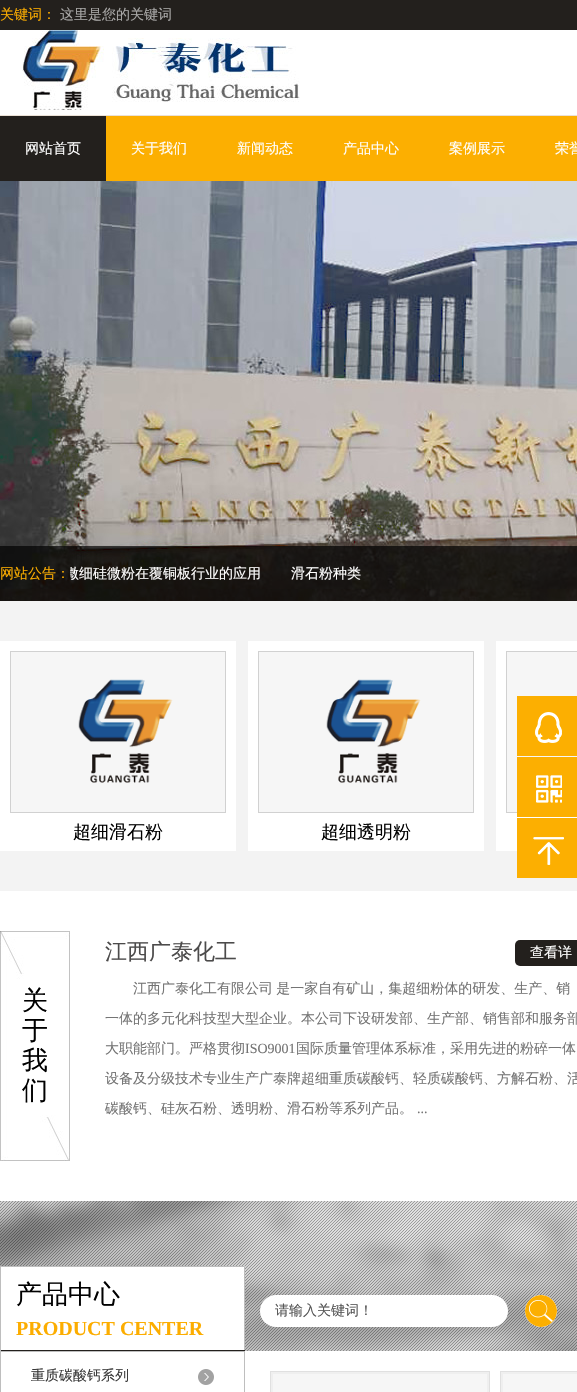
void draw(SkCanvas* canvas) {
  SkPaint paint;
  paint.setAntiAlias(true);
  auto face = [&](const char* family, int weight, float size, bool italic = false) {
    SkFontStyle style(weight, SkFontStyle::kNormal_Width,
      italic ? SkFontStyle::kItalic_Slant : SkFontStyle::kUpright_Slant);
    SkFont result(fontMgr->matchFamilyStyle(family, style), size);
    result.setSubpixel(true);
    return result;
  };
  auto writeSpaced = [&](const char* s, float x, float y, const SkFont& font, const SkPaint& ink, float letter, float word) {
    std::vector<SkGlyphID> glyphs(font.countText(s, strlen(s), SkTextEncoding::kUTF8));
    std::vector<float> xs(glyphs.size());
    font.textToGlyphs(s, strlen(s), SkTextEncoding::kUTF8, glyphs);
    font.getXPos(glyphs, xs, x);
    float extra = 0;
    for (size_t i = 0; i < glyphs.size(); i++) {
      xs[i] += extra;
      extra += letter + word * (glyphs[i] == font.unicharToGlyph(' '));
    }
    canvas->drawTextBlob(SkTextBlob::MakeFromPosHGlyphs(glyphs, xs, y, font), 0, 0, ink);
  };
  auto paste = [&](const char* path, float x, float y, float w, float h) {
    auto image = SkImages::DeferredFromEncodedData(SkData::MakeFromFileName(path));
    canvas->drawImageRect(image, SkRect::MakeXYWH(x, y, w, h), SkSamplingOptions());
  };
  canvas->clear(0xffffffff);
  paint.setColor(0xff23201d);
  canvas->drawRect(SkRect::MakeXYWH(0, 0, 577, 30), paint);
  paint.setColor(0xffebe1d6);
  canvas->drawRect(SkRect::MakeXYWH(0, 115, 577, 1), paint);
  paste("img/1.png", 22, 30, 278, 80);
  paint.setColor(0xfffcaf01);
  canvas->drawRect(SkRect::MakeXYWH(106, 116, 471, 65), paint);
  paint.setColor(0xff23201d);
  canvas->drawRect(SkRect::MakeXYWH(0, 116, 106, 65), paint);
  paste("img/2.png", 0, 181, 577, 420);
  {
    const struct { float x, y, w, h; SkColor color; } items[] = {
      {0, 546, 577, 55, 0xb3000000},
      {0, 601, 577, 290, 0xfff3f3f3},
      {0, 641, 236, 210, 0xffffffff},
    };
    for (auto [x, y, w, h, color] : items) {
      paint.setColor(color);
      canvas->drawRect(SkRect::MakeXYWH(x, y, w, h), paint);
    }
  }
  paint.setStroke(true);
  paint.setStrokeWidth(1);
  paint.setColor(0xffd1d1d1);
  canvas->drawRect(SkRect::MakeXYWH(10.5f, 651.5f, 215, 161), paint);
  paste("img/3.png", 11, 652, 214, 160);
  paint.setStroke(false);
  paint.setColor(0xffffffff);
  canvas->drawRect(SkRect::MakeXYWH(248, 641, 236, 210), paint);
  paint.setStroke(true);
  paint.setColor(0xffd1d1d1);
  canvas->drawRect(SkRect::MakeXYWH(258.5f, 651.5f, 215, 161), paint);
  paste("img/4.png", 259, 652, 214, 160);
  paint.setStroke(false);
  paint.setColor(0xffffffff);
  canvas->drawRect(SkRect::MakeXYWH(496, 641, 81, 210), paint);
  paint.setStroke(true);
  paint.setColor(0xffd1d1d1);
  canvas->drawRect(SkRect::MakeXYWH(506.5f, 651.5f, 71, 161), paint);
  paste("img/5.png", 507, 652, 70, 160);
  paint.setStroke(false);
  paint.setColor(0xfffcaf01);
  canvas->drawRect(SkRect::MakeXYWH(517, 696, 60, 60), paint);
  paste("img/6.png", 535, 712, 27, 31);
  canvas->drawRect(SkRect::MakeXYWH(517, 757, 60, 60), paint);
  paste("img/7.png", 536, 775, 26, 28);
  canvas->drawRect(SkRect::MakeXYWH(517, 818, 60, 60), paint);
  paste("img/8.png", 533, 837, 31, 28);
  paste("img/9.png", 0, 931, 70, 230);
  paint.setColor(0xff23201d);
  canvas->drawRoundRect(SkRect::MakeXYWH(515, 940, 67, 26), 5, 5, paint);
  paste("img/10.png", 0, 1201, 577, 150);
  {
    const struct { float x, y, w, h; SkColor color; } items[] = {
      {1, 1267, 243, 83, 0xffffffff},
      {0, 1266, 245, 1, 0xffbebebe},
      {244, 1266, 1, 85, 0xffbebebe},
      {0, 1350, 245, 1, 0xff23201d},
      {0, 1266, 1, 85, 0xffbebebe},
    };
    for (auto [x, y, w, h, color] : items) {
      paint.setColor(color);
      canvas->drawRect(SkRect::MakeXYWH(x, y, w, h), paint);
    }
  }
  paint.setColor(0xffffffff);
  canvas->drawRoundRect(SkRect::MakeXYWH(260, 1295, 248, 32), 16, 16, paint);
  canvas->drawCircle(541, 1311, 16, paint);
  paste("img/11.png", 525, 1295, 32, 32);
  paint.setStroke(true);
  paint.setColor(0xffbebebe);
  canvas->drawRect(SkRect::MakeXYWH(0.5f, 1351.5f, 244, 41), paint);
  paste("img/12.png", 198, 1369, 16, 16);
  paint.setStroke(false);
  paint.setColor(0xffefefef);
  canvas->drawRect(SkRect::MakeXYWH(270.5f, 1371.5f, 219, 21), paint);
  paint.setStroke(true);
  paint.setColor(0xffe0e0e0);
  canvas->drawRect(SkRect::MakeXYWH(270.5f, 1371.5f, 219, 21), paint);
  paint.setStroke(false);
  paint.setColor(0xfff6f6f6);
  canvas->drawRect(SkRect::MakeXYWH(273, 1374, 214, 18), paint);
  paint.setColor(0xffefefef);
  canvas->drawRect(SkRect::MakeXYWH(500.5f, 1371.5f, 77, 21), paint);
  paint.setStroke(true);
  paint.setColor(0xffe0e0e0);
  canvas->drawRect(SkRect::MakeXYWH(500.5f, 1371.5f, 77, 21), paint);
  paint.setStroke(false);
  paint.setColor(0xfff6f6f6);
  canvas->drawRect(SkRect::MakeXYWH(503, 1374, 74, 18), paint);
  auto f0 = face("WenQuanYi Zen Hei", 500, 14);
  paint.setColor(0xfffcad00);
  canvas->drawString("关键词：", 0, 19, f0, paint);
  paint.setColor(0xffaaa9a8);
  canvas->drawString("这里是您的关键词", 60, 19, f0, paint);
  paint.setColor(0xffffffff);
  {
    const struct { const char* s; float x, y; } items[] = {
      {"网站首页", 25, 153},
      {"关于我们", 131, 153},
      {"新闻动态", 237, 153},
      {"产品中心", 343, 153},
      {"案例展示", 449, 153},
      {"荣誉", 555, 153},
    };
    for (auto [s, x, y] : items) {
      canvas->drawString(s, x, y, f0, paint);
    }
  }
  paint.setColor(0xfffcad00);
  canvas->drawString("网站公告：", 0, 578, f0, paint);
  canvas->save();
  canvas->clipRect(SkRect::MakeXYWH(70, 546, 206, 55));
  paint.setColor(0xffffffff);
  canvas->drawString("微细硅微粉在覆铜板行业的应用", 65, 578, f0, paint);
  canvas->restore();
  canvas->drawString("滑石粉种类", 291, 578, f0, paint);
  auto f1 = face("WenQuanYi Zen Hei", 500, 18);
  paint.setColor(0xff000000);
  canvas->drawString("超细滑石粉", 73, 838, f1, paint);
  canvas->drawString("超细透明粉", 321, 838, f1, paint);
  auto f2 = face("WenQuanYi Zen Hei", 500, 26);
  {
    const struct { const char* s; float x, y; } items[] = {
      {"关", 22, 1009},
      {"于", 22, 1039},
      {"我", 22, 1069},
      {"们", 22, 1099},
    };
    for (auto [s, x, y] : items) {
      canvas->drawString(s, x, y, f2, paint);
    }
  }
  auto f3 = face("WenQuanYi Zen Hei", 500, 22);
  paint.setColor(0xff4c4b4b);
  canvas->drawString("江西广泰化工", 105, 959, f3, paint);
  paint.setColor(0xffffffff);
  canvas->drawString("查看详", 530, 957, f0, paint);
  paint.setColor(0xff747474);
  writeSpaced("江西广泰化工有限公司 是一家自有矿山，集超细粉体的研发、生产、销", 133, 993, f0, paint, 0, -1);
  canvas->drawString("一体的多元化科技型大型企业。本公司下设研发部、生产部、销售部和服务部", 105, 1023, f0, paint);
  canvas->drawString("大职能部门。严格贯彻", 105, 1053, f0, paint);
  auto f4 = face("Liberation Serif", 400, 14);
  canvas->drawString("ISO9001", 245, 1053, f4, paint);
  {
    const struct { const char* s; float x, y; } items[] = {
      {"国际质量管理体系标准，采用先进的粉碎一体", 296, 1053},
      {"设备及分级技术专业生产广泰牌超细重质碳酸钙、轻质碳酸钙、方解石粉、活", 105, 1083},
      {"碳酸钙、硅灰石粉、透明粉、滑石粉等系列产品。", 105, 1113},
    };
    for (auto [s, x, y] : items) {
      canvas->drawString(s, x, y, f0, paint);
    }
  }
  canvas->drawString("...", 417, 1113, f4, paint);
  paint.setColor(0xff000000);
  canvas->drawString("产品中心", 16, 1303, f2, paint);
  auto f5 = face("Liberation Serif", 700, 20);
  paint.setColor(0xfffcad00);
  canvas->drawString("PRODUCT CENTER", 16, 1335, f5, paint);
  paint.setColor(0xff555555);
  canvas->drawString("请输入关键词！", 275, 1315, f0, paint);
  paint.setColor(0xff383838);
  canvas->drawString("重质碳酸钙系列", 31, 1380, f0, paint);
}
